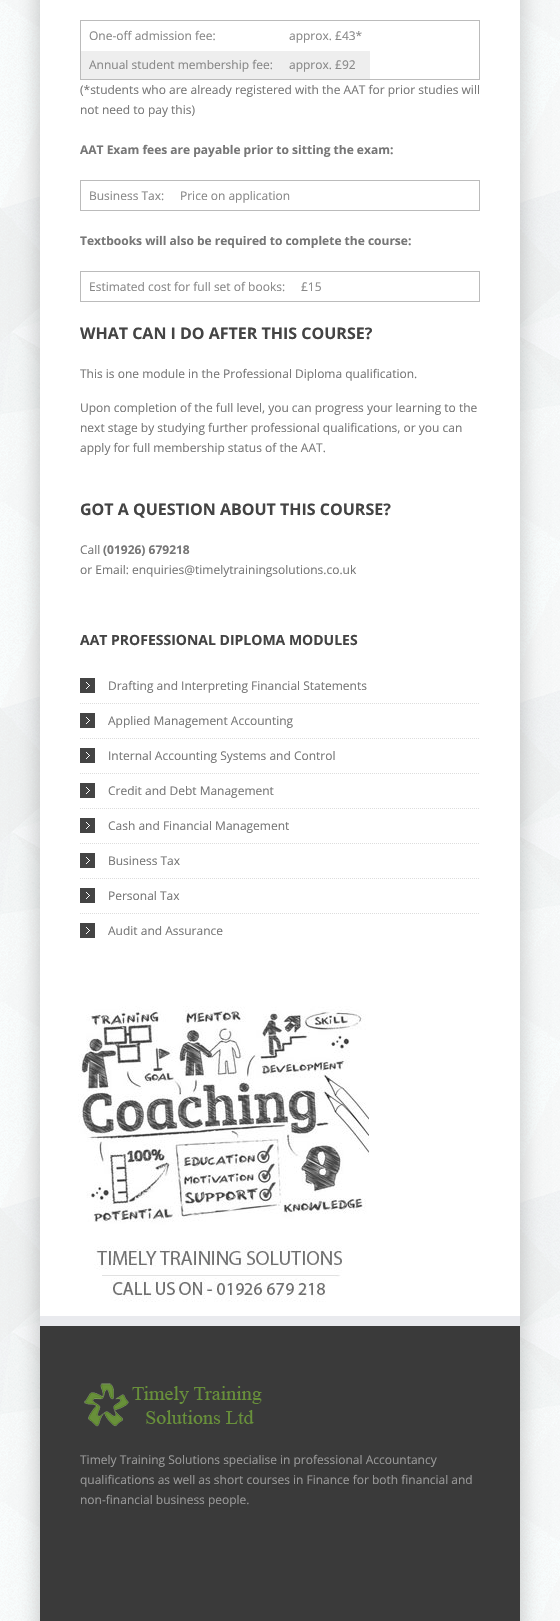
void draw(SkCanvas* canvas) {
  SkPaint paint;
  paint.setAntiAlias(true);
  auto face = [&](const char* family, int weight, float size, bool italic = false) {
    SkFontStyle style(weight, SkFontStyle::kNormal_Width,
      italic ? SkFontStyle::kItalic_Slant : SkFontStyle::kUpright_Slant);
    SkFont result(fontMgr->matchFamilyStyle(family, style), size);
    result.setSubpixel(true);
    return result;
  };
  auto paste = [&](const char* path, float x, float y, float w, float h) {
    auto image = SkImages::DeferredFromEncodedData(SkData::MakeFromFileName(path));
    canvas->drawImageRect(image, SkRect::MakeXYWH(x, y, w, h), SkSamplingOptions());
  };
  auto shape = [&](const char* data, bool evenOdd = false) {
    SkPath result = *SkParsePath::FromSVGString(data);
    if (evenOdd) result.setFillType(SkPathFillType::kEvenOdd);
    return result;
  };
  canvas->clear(0xffffffff);
  paste("img/1.png", 0, 0, 560, 1621);
  paint.setColor(0x33000000);
  paint.setMaskFilter(SkMaskFilter::MakeBlur(kNormal_SkBlurStyle, 10));
  canvas->drawRect(SkRect::MakeXYWH(38, -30, 484, 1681), paint);
  paint.setMaskFilter(nullptr);
  paint.setColor(0xffffffff);
  canvas->drawRect(SkRect::MakeXYWH(40, 0, 480, 1316), paint);
  paint.setStroke(true);
  paint.setStrokeWidth(1);
  paint.setColor(0xffbbbbbb);
  canvas->drawRect(SkRect::MakeXYWH(80.5f, 20.5f, 399, 59), paint);
  paint.setStroke(false);
  paint.setColor(0xffeeeeee);
  canvas->drawRect(SkRect::MakeXYWH(81, 51, 289, 28), paint);
  paint.setStroke(true);
  paint.setColor(0xffbbbbbb);
  canvas->drawRect(SkRect::MakeXYWH(80.5f, 180.5f, 399, 30), paint);
  canvas->drawRect(SkRect::MakeXYWH(80.5f, 271.5f, 399, 30), paint);
  paste("img/2.png", 80, 678, 15, 15);
  paint.setColor(0xffdddddd);
  paint.setPathEffect(SkDashPathEffect::Make({{1, 1}}, 0));
  canvas->drawPath(shape("M80 703.5H480"), paint);
  paint.setPathEffect(nullptr);
  paste("img/2.png", 80, 713, 15, 15);
  paint.setPathEffect(SkDashPathEffect::Make({{1, 1}}, 0));
  canvas->drawPath(shape("M80 738.5H480"), paint);
  paint.setPathEffect(nullptr);
  paste("img/2.png", 80, 748, 15, 15);
  paint.setPathEffect(SkDashPathEffect::Make({{1, 1}}, 0));
  canvas->drawPath(shape("M80 773.5H480"), paint);
  paint.setPathEffect(nullptr);
  paste("img/2.png", 80, 783, 15, 15);
  paint.setPathEffect(SkDashPathEffect::Make({{1, 1}}, 0));
  canvas->drawPath(shape("M80 808.5H480"), paint);
  paint.setPathEffect(nullptr);
  paste("img/2.png", 80, 818, 15, 15);
  paint.setPathEffect(SkDashPathEffect::Make({{1, 1}}, 0));
  canvas->drawPath(shape("M80 843.5H480"), paint);
  paint.setPathEffect(nullptr);
  paste("img/2.png", 80, 853, 15, 15);
  paint.setPathEffect(SkDashPathEffect::Make({{1, 1}}, 0));
  canvas->drawPath(shape("M80 878.5H480"), paint);
  paint.setPathEffect(nullptr);
  paste("img/2.png", 80, 888, 15, 15);
  paint.setPathEffect(SkDashPathEffect::Make({{1, 1}}, 0));
  canvas->drawPath(shape("M80 913.5H480"), paint);
  paint.setPathEffect(nullptr);
  paste("img/2.png", 80, 923, 15, 15);
  paste("img/3.png", 78, 1006, 292, 296);
  paint.setStroke(false);
  paint.setColor(0xff3a3a3a);
  canvas->drawRect(SkRect::MakeXYWH(40, 1326, 480, 295), paint);
  paint.setColor(0xffe9eaee);
  canvas->drawRect(SkRect::MakeXYWH(40, 1316, 480, 10), paint);
  paste("img/4.png", 84, 1383, 178, 44);
  auto f0 = face("Open Sans", 400, 12);
  paint.setColor(0xff888888);
  {
    const struct { const char* s; float x, y; } items[] = {
      {"One-off admission fee:", 89, 40},
      {"approx. £43*", 289, 40},
      {"Annual student membership fee:", 89, 69},
      {"approx. £92", 289, 69},
    };
    for (auto [s, x, y] : items) {
      canvas->drawString(s, x, y, f0, paint);
    }
  }
  paint.setColor(0xff777777);
  canvas->drawString("(*students who are already registered with the AAT for prior studies will", 80, 94, f0, paint);
  canvas->drawString("not need to pay this)", 80, 114, f0, paint);
  auto f1 = face("Open Sans", 700, 12);
  canvas->drawString("AAT Exam fees are payable prior to sitting the exam:", 80, 154, f1, paint);
  paint.setColor(0xff888888);
  canvas->drawString("Business Tax:", 89, 200, f0, paint);
  canvas->drawString("Price on application", 180, 200, f0, paint);
  paint.setColor(0xff777777);
  canvas->drawString("Textbooks will also be required to complete the course:", 80, 245, f1, paint);
  paint.setColor(0xff888888);
  canvas->drawString("Estimated cost for full set of books:", 89, 291, f0, paint);
  canvas->drawString("£15", 301, 291, f0, paint);
  auto f2 = face("Open Sans", 700, 16);
  paint.setColor(0xff444444);
  canvas->drawString("WHAT CAN I DO AFTER THIS COURSE?", 80, 339, f2, paint);
  paint.setColor(0xff777777);
  {
    const struct { const char* s; float x, y; } items[] = {
      {"This is one module in the Professional Diploma qualification.", 80, 378},
      {"Upon completion of the full level, you can progress your learning to the", 80, 412},
      {"next stage by studying further professional qualifications, or you can", 80, 432},
      {"apply for full membership status of the AAT.", 80, 452},
    };
    for (auto [s, x, y] : items) {
      canvas->drawString(s, x, y, f0, paint);
    }
  }
  paint.setColor(0xff444444);
  canvas->drawString("GOT A QUESTION ABOUT THIS COURSE?", 80, 515, f2, paint);
  paint.setColor(0xff777777);
  canvas->drawString("Call", 80, 554, f0, paint);
  canvas->drawString("(01926) 679218", 103, 554, f1, paint);
  canvas->drawString("or Email: enquiries@timelytrainingsolutions.co.uk", 80, 574, f0, paint);
  auto f3 = face("Open Sans", 700, 14);
  paint.setColor(0xff444444);
  canvas->drawString("AAT PROFESSIONAL DIPLOMA MODULES", 80, 645, f3, paint);
  paint.setColor(0xff777777);
  {
    const struct { const char* s; float x, y; } items[] = {
      {"Drafting and Interpreting Financial Statements", 108, 690},
      {"Applied Management Accounting", 108, 725},
      {"Internal Accounting Systems and Control", 108, 760},
      {"Credit and Debt Management", 108, 795},
      {"Cash and Financial Management", 108, 830},
      {"Business Tax", 108, 865},
      {"Personal Tax", 108, 900},
      {"Audit and Assurance", 108, 935},
    };
    for (auto [s, x, y] : items) {
      canvas->drawString(s, x, y, f0, paint);
    }
  }
  paint.setColor(0xff999999);
  {
    const struct { const char* s; float x, y; } items[] = {
      {"Timely Training Solutions specialise in professional Accountancy", 80, 1464},
      {"qualifications as well as short courses in Finance for both financial and", 80, 1484},
      {"non-financial business people.", 80, 1504},
    };
    for (auto [s, x, y] : items) {
      canvas->drawString(s, x, y, f0, paint);
    }
  }
}
